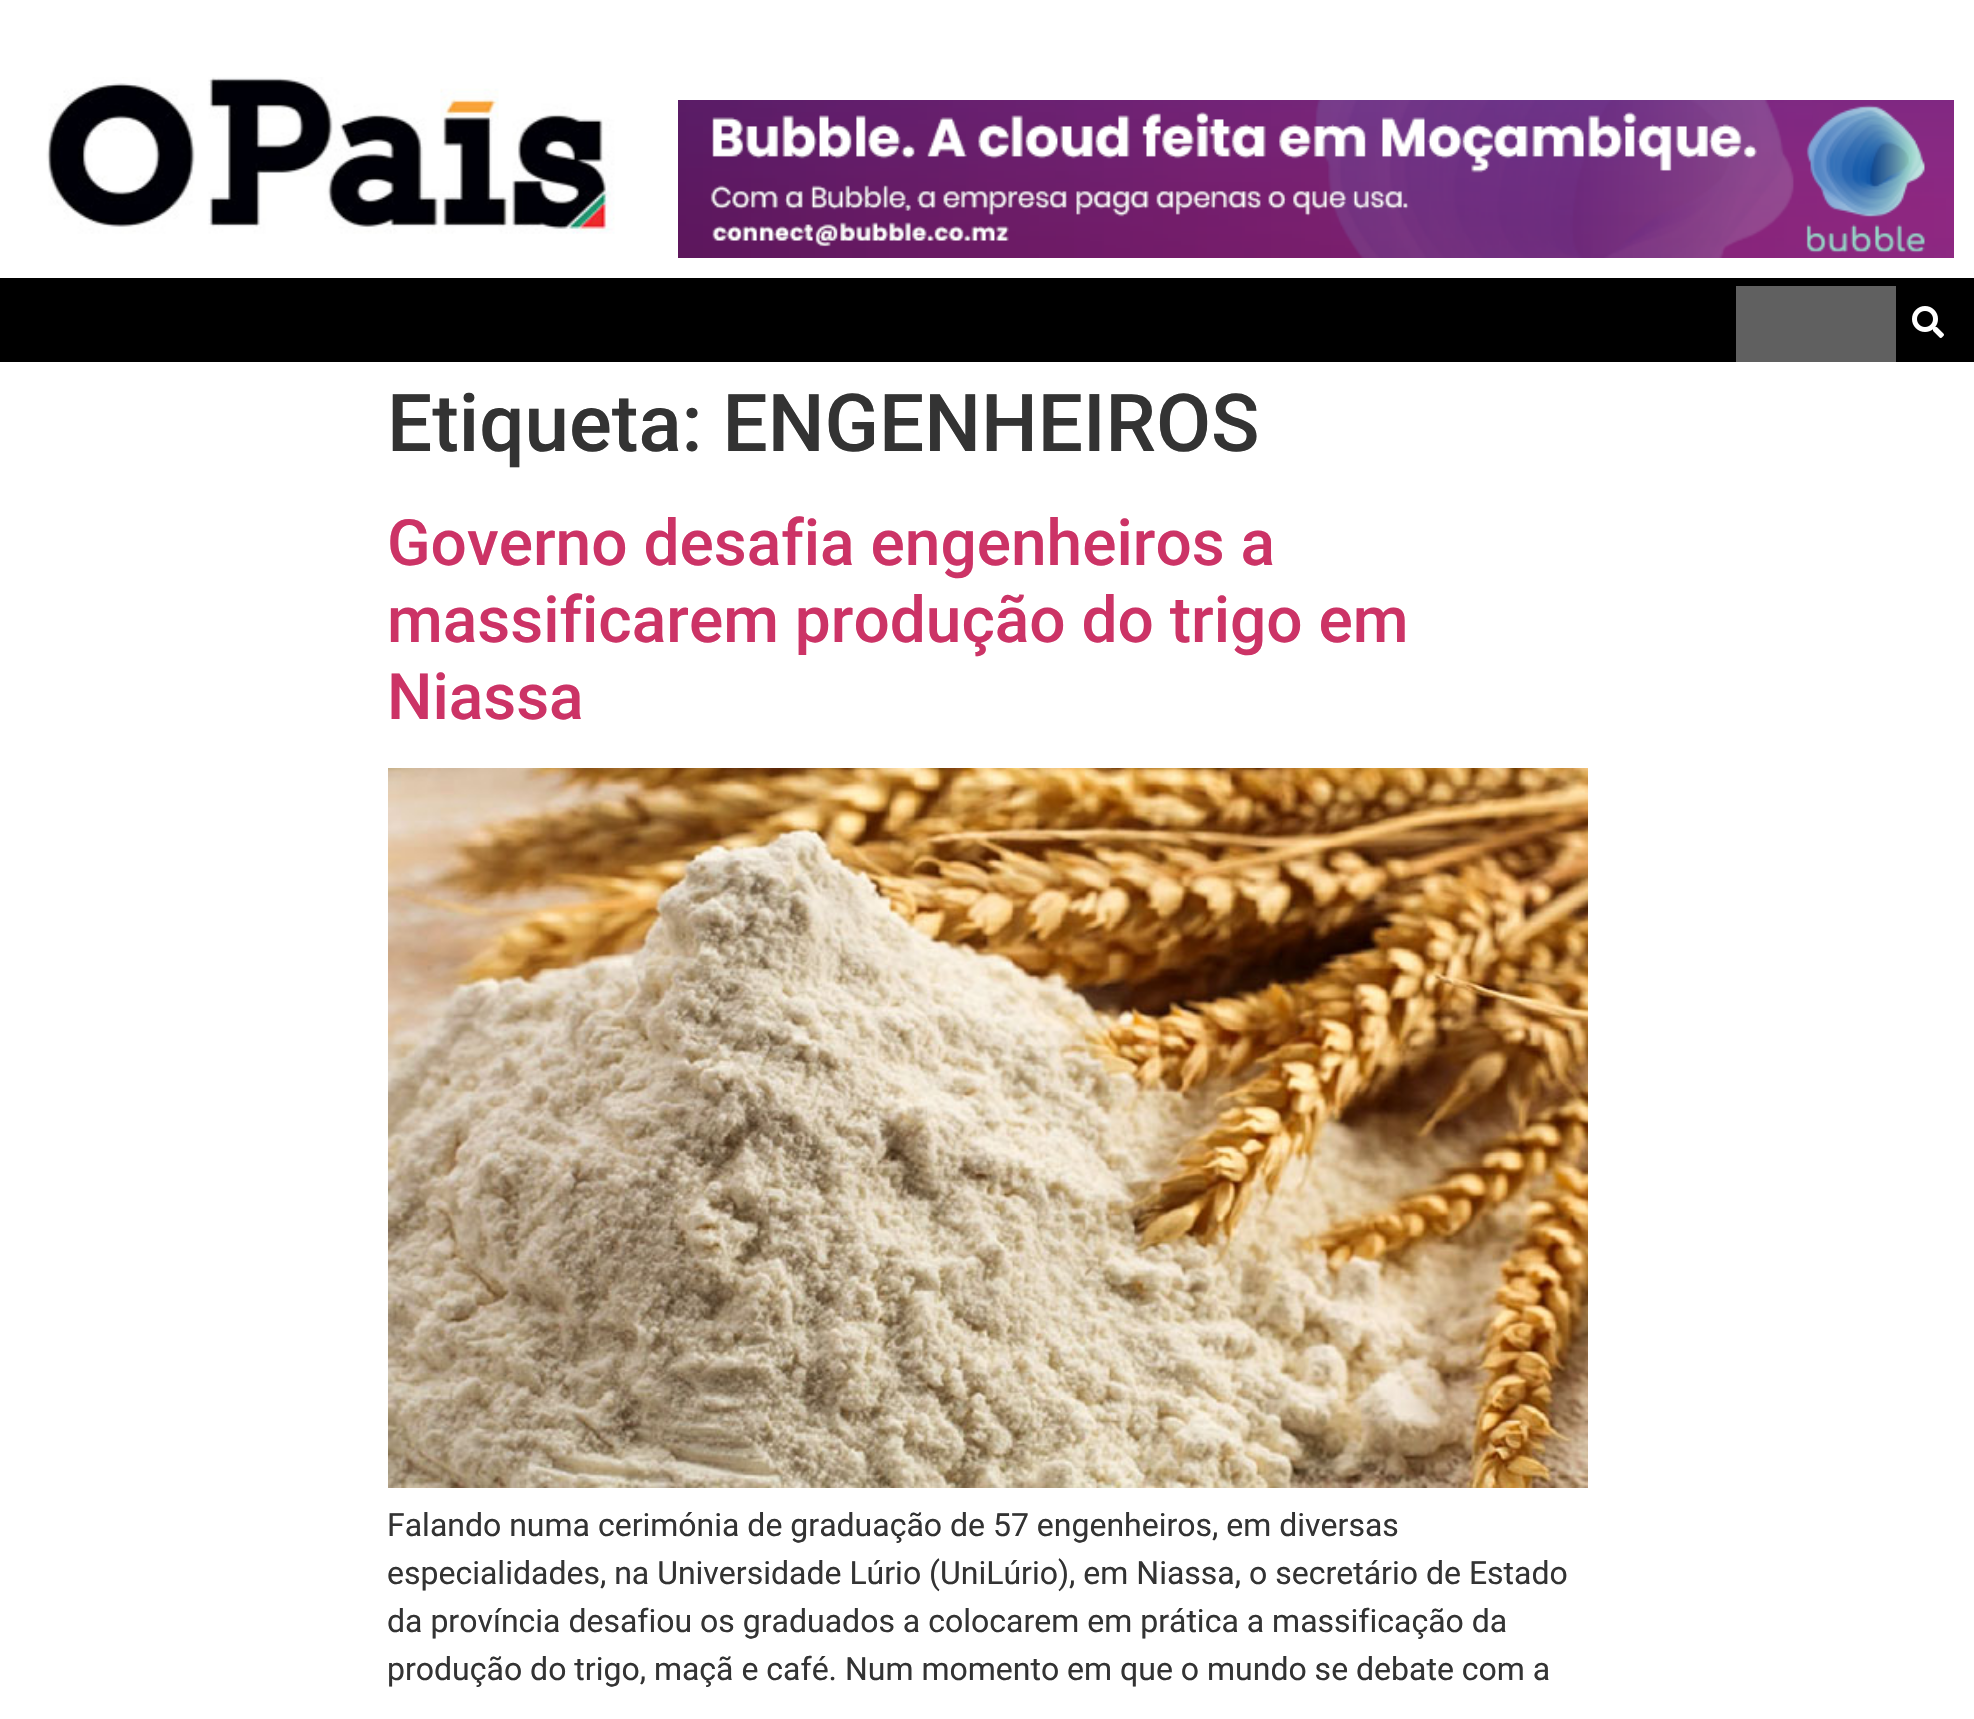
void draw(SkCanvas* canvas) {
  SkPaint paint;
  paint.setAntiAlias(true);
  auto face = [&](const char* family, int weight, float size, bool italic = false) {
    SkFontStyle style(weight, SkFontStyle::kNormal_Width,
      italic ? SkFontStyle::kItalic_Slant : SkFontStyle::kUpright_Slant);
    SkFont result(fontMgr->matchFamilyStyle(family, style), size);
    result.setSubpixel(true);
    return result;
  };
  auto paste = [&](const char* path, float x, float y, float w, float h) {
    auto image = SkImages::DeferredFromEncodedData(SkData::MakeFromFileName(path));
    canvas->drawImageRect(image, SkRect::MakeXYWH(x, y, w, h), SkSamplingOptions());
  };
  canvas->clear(0xffffffff);
  paste("img/1.png", 46, 77, 569, 157);
  paste("img/2.png", 678, 100, 1276, 158);
  paint.setColor(0xff000000);
  canvas->drawRect(SkRect::MakeXYWH(0, 278, 1974, 84), paint);
  paint.setColor(0xff606060);
  canvas->drawRect(SkRect::MakeXYWH(1736, 286, 160, 76), paint);
  paste("img/3.png", 1912, 306, 32, 32);
  paste("img/4.png", 388, 768, 1200, 720);
  auto f0 = face("Roboto", 500, 80);
  paint.setColor(0xff333333);
  canvas->drawString("Etiqueta: ENGENHEIROS", 387, 451, f0, paint);
  auto f1 = face("Roboto", 500, 64);
  paint.setColor(0xffcc3366);
  {
    const struct { const char* s; float x, y; } items[] = {
      {"Governo desafia engenheiros a", 387, 565},
      {"massificarem produção do trigo em", 387, 642},
      {"Niassa", 387, 719},
    };
    for (auto [s, x, y] : items) {
      canvas->drawString(s, x, y, f1, paint);
    }
  }
  auto f2 = face("Roboto", 400, 32);
  paint.setColor(0xff333333);
  {
    const struct { const char* s; float x, y; } items[] = {
      {"Falando numa cerimónia de graduação de 57 engenheiros, em diversas", 387, 1536},
      {"especialidades, na Universidade Lúrio (UniLúrio), em Niassa, o secretário de Estado", 387, 1584},
      {"da província desafiou os graduados a colocarem em prática a massificação da", 387, 1632},
      {"produção do trigo, maçã e café. Num momento em que o mundo se debate com a", 387, 1680},
    };
    for (auto [s, x, y] : items) {
      canvas->drawString(s, x, y, f2, paint);
    }
  }
}
